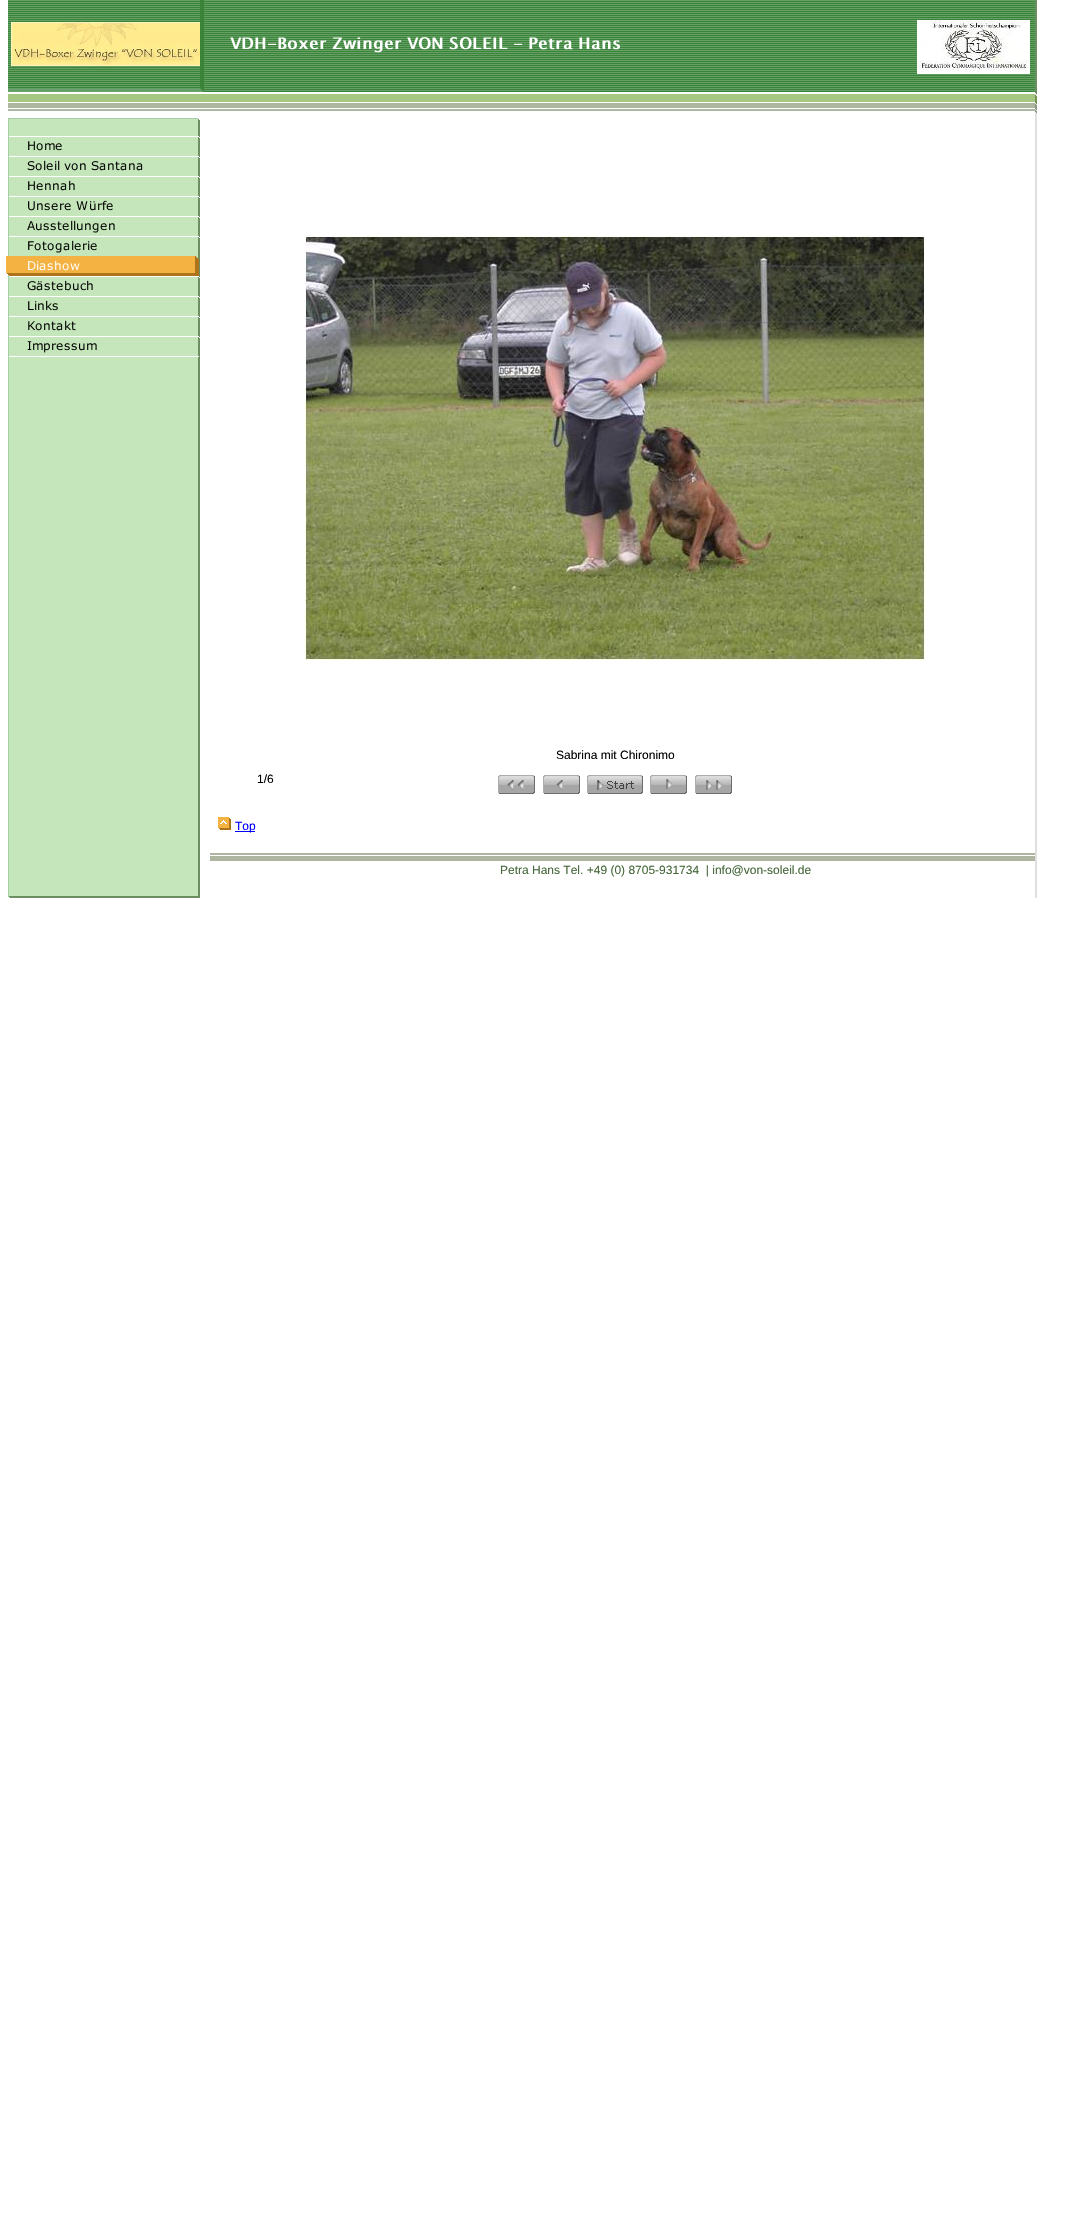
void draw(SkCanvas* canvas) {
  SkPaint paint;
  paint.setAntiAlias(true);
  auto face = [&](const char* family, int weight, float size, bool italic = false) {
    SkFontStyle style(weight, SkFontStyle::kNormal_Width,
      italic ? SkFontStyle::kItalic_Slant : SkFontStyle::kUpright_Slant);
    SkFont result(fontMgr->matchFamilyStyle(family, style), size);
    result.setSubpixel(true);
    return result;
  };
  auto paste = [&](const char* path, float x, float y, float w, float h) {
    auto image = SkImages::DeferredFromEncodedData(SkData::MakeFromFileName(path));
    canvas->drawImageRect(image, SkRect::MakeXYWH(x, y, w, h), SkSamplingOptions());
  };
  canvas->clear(0xffffffff);
  paste("img/1.png", 8, 0, 196, 92);
  paste("img/2.png", 204, 0, 652, 92);
  paste("img/3.png", 230, 37, 390, 16);
  paste("img/4.png", 856, 0, 179, 92);
  paste("img/5.png", 917, 20, 113, 54);
  paste("img/6.png", 8, 94, 196, 17);
  paste("img/7.png", 204, 94, 831, 17);
  paste("img/8.png", 8, 118, 192, 735);
  paste("img/9.png", 9, 118, 191, 2);
  paste("img/10.png", 9, 136, 191, 15);
  paste("img/11.png", 9, 156, 191, 15);
  paste("img/12.png", 9, 176, 191, 15);
  paste("img/13.png", 9, 196, 191, 15);
  paste("img/14.png", 9, 216, 191, 17);
  paste("img/15.png", 9, 236, 191, 17);
  paste("img/16.png", 6, 256, 193, 20);
  paste("img/17.png", 9, 276, 191, 15);
  paste("img/18.png", 9, 296, 191, 15);
  paste("img/19.png", 9, 316, 191, 15);
  paste("img/20.png", 9, 336, 191, 17);
  paint.setColor(0xffffffff);
  canvas->drawRect(SkRect::MakeXYWH(9, 356, 190, 1), paint);
  paste("img/21.png", 305, 236, 620, 424);
  paste("img/22.png", 498, 775, 37, 19);
  paste("img/23.png", 543, 775, 37, 19);
  paste("img/24.png", 587, 775, 56, 19);
  paste("img/25.png", 650, 775, 37, 19);
  paste("img/26.png", 695, 775, 37, 19);
  paste("img/27.png", 218, 817, 13, 13);
  paint.setColor(0xff0000ff);
  canvas->drawRect(SkRect::MakeXYWH(235, 831, 20, 1), paint);
  paste("img/28.png", 8, 853, 192, 10);
  paste("img/29.png", 210, 853, 825, 8);
  paste("img/30.png", 8, 863, 192, 35);
  paste("img/31.png", 8, 896, 190, 2);
  paint.setColor(0xffdfdfdf);
  canvas->drawRect(SkRect::MakeXYWH(1035, 113, 2, 785), paint);
  paste("img/32.png", 1035, 0, 2, 113);
  auto f0 = face("Liberation Sans", 400, 12);
  paint.setColor(0xff000000);
  canvas->drawString("Sabrina mit Chironimo", 556, 759, f0, paint);
  canvas->drawString("1/6", 257, 783, f0, paint);
  paint.setColor(0xff0000ff);
  canvas->drawString("Top", 235, 830, f0, paint);
  paint.setColor(0xff46673a);
  canvas->drawString("Petra Hans Tel. +49 (0) 8705-931734  | info@von-soleil.de", 500, 874, f0, paint);
}
